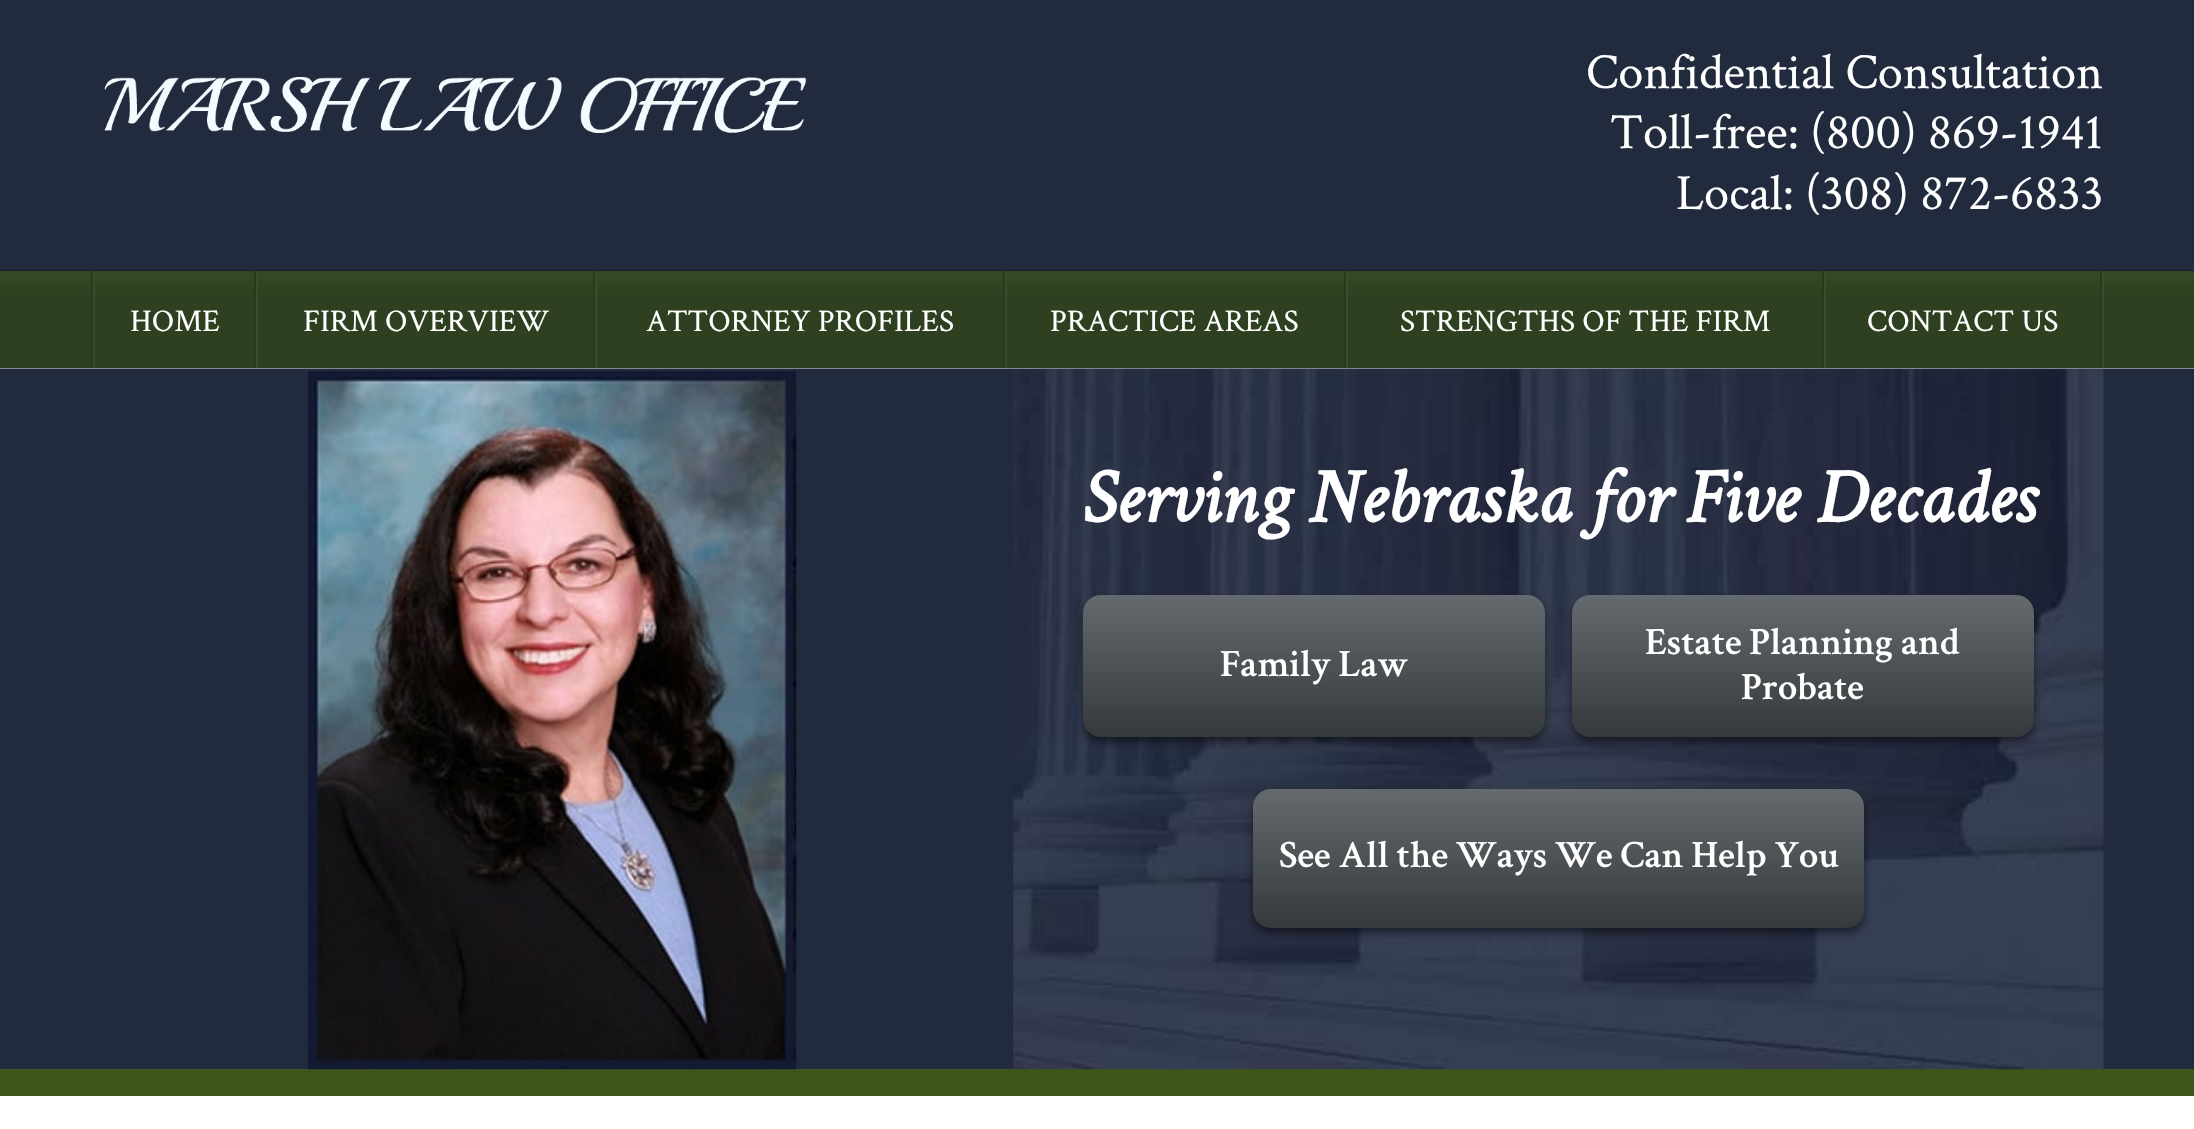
void draw(SkCanvas* canvas) {
  SkPaint paint;
  paint.setAntiAlias(true);
  auto face = [&](const char* family, int weight, float size, bool italic = false) {
    SkFontStyle style(weight, SkFontStyle::kNormal_Width,
      italic ? SkFontStyle::kItalic_Slant : SkFontStyle::kUpright_Slant);
    SkFont result(fontMgr->matchFamilyStyle(family, style), size);
    result.setSubpixel(true);
    return result;
  };
  auto paste = [&](const char* path, float x, float y, float w, float h) {
    auto image = SkImages::DeferredFromEncodedData(SkData::MakeFromFileName(path));
    canvas->drawImageRect(image, SkRect::MakeXYWH(x, y, w, h), SkSamplingOptions());
  };
  canvas->clear(0xffffffff);
  paint.setColor(0xff222a3d);
  canvas->drawRect(SkRect::MakeXYWH(0, 0, 2194, 270), paint);
  paint.setColor(0xff191f2e);
  canvas->drawRect(SkRect::MakeXYWH(0, 270, 2194, 1), paint);
  paste("img/1.png", 104, 77, 703, 56);
  {
    const SkColor colors[] = {0xff354a24, 0xff2e4020};
    const float stops[] = {0, 0.27f};
    const SkPoint ends[] = {{1097, 271}, {1097, 368}};
    paint.setShader(SkGradientShader::MakeLinear(ends, colors, stops, 2, SkTileMode::kClamp));
    paint.setAlpha(255);
  }
  canvas->drawRect(SkRect::MakeXYWH(0, 271, 2194, 97), paint);
  paint.setShader(nullptr);
  {
    const struct { float x, y, w, h; SkColor color; } items[] = {
      {0, 368, 2194, 1, 0xff818691},
      {2102, 271, 2, 97, 0xff3b4d2e},
      {91, 271, 2, 97, 0xff293a1c},
      {254, 271, 2, 97, 0xff293a1c},
      {93, 271, 2, 97, 0xff3b4d2e},
      {593, 271, 2, 97, 0xff293a1c},
      {256, 271, 2, 97, 0xff3b4d2e},
      {1003, 271, 2, 97, 0xff293a1c},
      {595, 271, 2, 97, 0xff3b4d2e},
      {1344, 271, 2, 97, 0xff293a1c},
      {1005, 271, 2, 97, 0xff3b4d2e},
      {1822, 271, 2, 97, 0xff293a1c},
      {1346, 271, 2, 97, 0xff3b4d2e},
      {2100, 271, 2, 97, 0xff293a1c},
      {1824, 271, 2, 97, 0xff3b4d2e},
      {0, 369, 2194, 700, 0xff222a3e},
      {0, 1069, 2194, 27, 0xff3d571a},
    };
    for (auto [x, y, w, h, color] : items) {
      paint.setColor(color);
      canvas->drawRect(SkRect::MakeXYWH(x, y, w, h), paint);
    }
  }
  paste("img/2.png", 308, 371, 489, 699);
  paste("img/3.png", 1013, 369, 1091, 701);
  paint.setColor(0x80000000);
  paint.setMaskFilter(SkMaskFilter::MakeBlur(kNormal_SkBlurStyle, 4.5f));
  canvas->drawRoundRect(SkRect::MakeXYWH(1083, 600, 462, 142), 18, 18, paint);
  paint.setMaskFilter(nullptr);
  {
    const SkColor colors[] = {0xff646a6e, 0xff35393b};
    const float stops[] = {0, 1};
    const SkPoint ends[] = {{1314, 595}, {1314, 737}};
    paint.setShader(SkGradientShader::MakeLinear(ends, colors, stops, 2, SkTileMode::kClamp));
    paint.setAlpha(255);
  }
  canvas->drawRoundRect(SkRect::MakeXYWH(1083, 595, 462, 142), 18, 18, paint);
  paint.setShader(nullptr);
  paint.setColor(0x80000000);
  paint.setMaskFilter(SkMaskFilter::MakeBlur(kNormal_SkBlurStyle, 4.5f));
  canvas->drawRoundRect(SkRect::MakeXYWH(1572, 600, 462, 142), 18, 18, paint);
  paint.setMaskFilter(nullptr);
  {
    const SkColor colors[] = {0xff646a6e, 0xff35393b};
    const float stops[] = {0, 1};
    const SkPoint ends[] = {{1803, 595}, {1803, 737}};
    paint.setShader(SkGradientShader::MakeLinear(ends, colors, stops, 2, SkTileMode::kClamp));
    paint.setAlpha(255);
  }
  canvas->drawRoundRect(SkRect::MakeXYWH(1572, 595, 462, 142), 18, 18, paint);
  paint.setShader(nullptr);
  paint.setColor(0x80000000);
  paint.setMaskFilter(SkMaskFilter::MakeBlur(kNormal_SkBlurStyle, 4.5f));
  canvas->drawRoundRect(SkRect::MakeXYWH(1253, 795, 611, 138), 18, 18, paint);
  paint.setMaskFilter(nullptr);
  {
    const SkColor colors[] = {0xff646a6e, 0xff35393b};
    const float stops[] = {0, 1};
    const SkPoint ends[] = {{1558, 789}, {1558, 928}};
    paint.setShader(SkGradientShader::MakeLinear(ends, colors, stops, 2, SkTileMode::kClamp));
    paint.setAlpha(255);
  }
  canvas->drawRoundRect(SkRect::MakeXYWH(1253, 789, 611, 139), 18, 18, paint);
  auto f0 = face("Crimson Text", 400, 50.5f);
  paint.setShader(nullptr);
  paint.setColor(0xffffffff);
  {
    const struct { const char* s; float x, y; } items[] = {
      {"Confidential Consultation", 1586, 88},
      {"Toll-free: (800) 869-1941", 1610, 148},
      {"Local: (308) 872-6833", 1676, 209},
    };
    for (auto [s, x, y] : items) {
      canvas->drawString(s, x, y, f0, paint);
    }
  }
  auto f1 = face("Crimson Text", 400, 31.5f);
  {
    const struct { const char* s; float x, y; } items[] = {
      {"HOME", 130, 331},
      {"FIRM OVERVIEW", 303, 331},
      {"ATTORNEY PROFILES", 646, 331},
      {"PRACTICE AREAS", 1050, 331},
      {"STRENGTHS OF THE FIRM", 1400, 331},
      {"CONTACT US", 1867, 331},
    };
    for (auto [s, x, y] : items) {
      canvas->drawString(s, x, y, f1, paint);
    }
  }
  auto f2 = face("Crimson Text", 700, 77.3f, true);
  canvas->drawString("Serving Nebraska for Five Decades", 1082, 522, f2, paint);
  auto f3 = face("Crimson Text", 600, 38.7f);
  {
    const struct { const char* s; float x, y; } items[] = {
      {"Family Law", 1220, 676},
      {"Estate Planning and", 1645, 654},
      {"Probate", 1741, 699},
      {"See All the Ways We Can Help You", 1279, 867},
    };
    for (auto [s, x, y] : items) {
      canvas->drawString(s, x, y, f3, paint);
    }
  }
}
